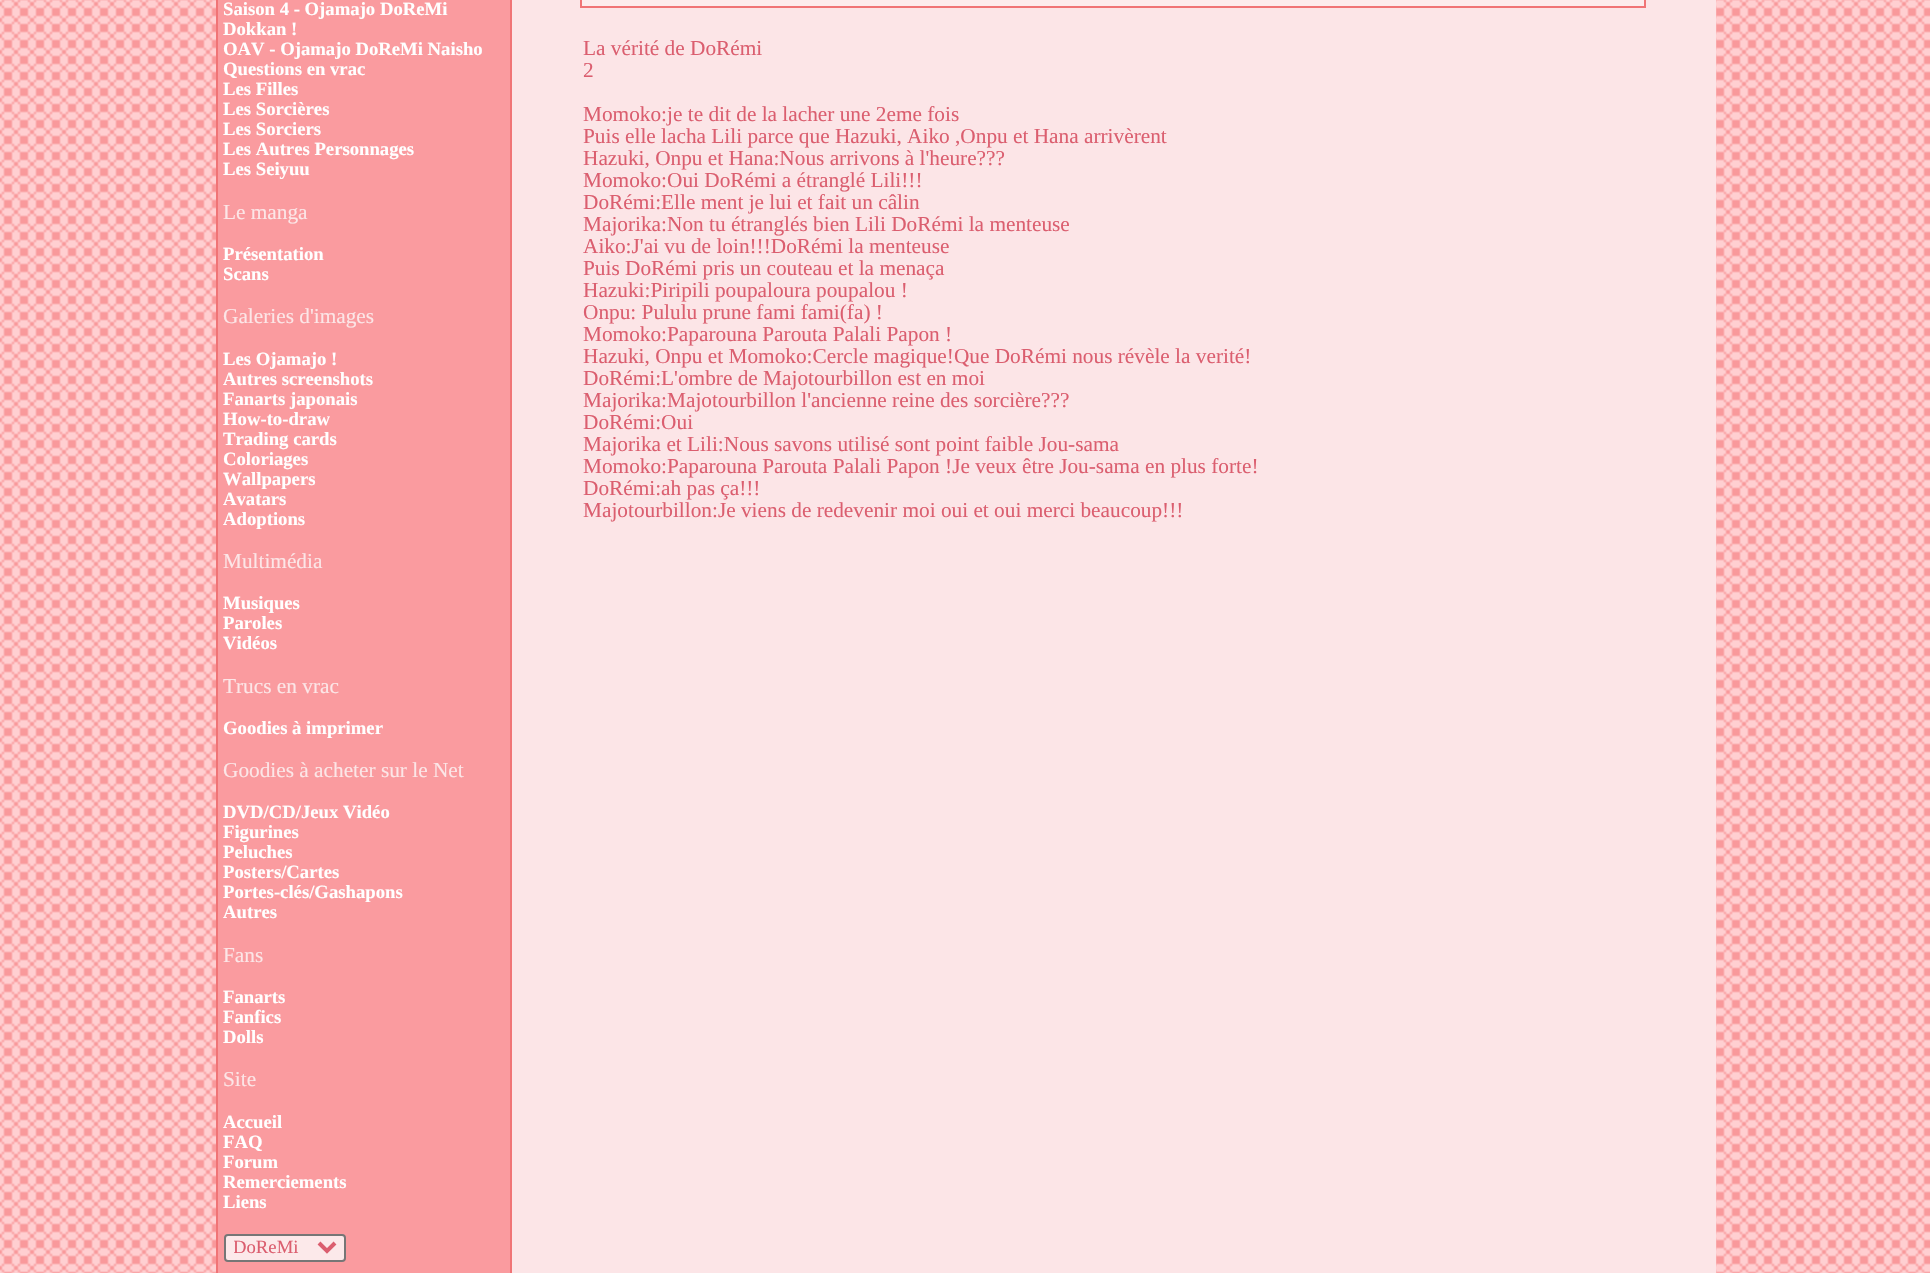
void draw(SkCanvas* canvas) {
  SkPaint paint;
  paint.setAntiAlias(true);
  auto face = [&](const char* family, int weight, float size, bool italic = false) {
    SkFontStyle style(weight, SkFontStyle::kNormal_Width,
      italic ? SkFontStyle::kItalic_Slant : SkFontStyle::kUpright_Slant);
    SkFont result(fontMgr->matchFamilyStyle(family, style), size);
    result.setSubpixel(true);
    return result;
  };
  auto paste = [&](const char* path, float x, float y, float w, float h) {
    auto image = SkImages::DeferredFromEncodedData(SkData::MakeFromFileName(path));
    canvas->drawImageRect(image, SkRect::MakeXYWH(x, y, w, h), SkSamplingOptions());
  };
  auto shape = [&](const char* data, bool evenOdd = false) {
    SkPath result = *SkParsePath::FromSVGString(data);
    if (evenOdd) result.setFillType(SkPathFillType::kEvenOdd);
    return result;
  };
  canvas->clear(0xffffffff);
  paste("img/1.png", 0, 0, 1930, 1273);
  {
    const struct { float x, y, w, h; SkColor color; } items[] = {
      {218, 0, 292, 1273, 0xfffa9b9f},
      {510, 0, 2, 1273, 0xfff07476},
      {216, 0, 2, 1273, 0xfff07476},
    };
    for (auto [x, y, w, h, color] : items) {
      paint.setColor(color);
      canvas->drawRect(SkRect::MakeXYWH(x, y, w, h), paint);
    }
  }
  paint.setColor(0xfffce9ea);
  canvas->drawRoundRect(SkRect::MakeXYWH(225, 1235, 120, 26), 3, 3, paint);
  paint.setStroke(true);
  paint.setStrokeWidth(2);
  paint.setColor(0xff767676);
  canvas->drawRoundRect(SkRect::MakeXYWH(225, 1235, 120, 26), 3, 3, paint);
  paint.setStrokeWidth(4);
  paint.setColor(0xffdb5e6f);
  canvas->drawPath(shape("M319 1243L327 1251L335 1243"), paint);
  paint.setStroke(false);
  paint.setColor(0xfffce5e7);
  canvas->drawRect(SkRect::MakeXYWH(512, 0, 1204, 1273), paint);
  paint.setColor(0xfffdeced);
  canvas->drawRect(SkRect::MakeXYWH(581, -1, 1064, 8), paint);
  paint.setStroke(true);
  paint.setStrokeWidth(2);
  paint.setColor(0xfff07476);
  canvas->drawRect(SkRect::MakeXYWH(581, -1, 1064, 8), paint);
  auto f0 = face("Liberation Serif", 700, 18.7f);
  paint.setStroke(false);
  paint.setColor(0xffffffff);
  {
    const struct { const char* s; float x, y; } items[] = {
      {"Saison 4 - Ojamajo DoReMi", 223, 15},
      {"Dokkan !", 223, 35},
      {"OAV - Ojamajo DoReMi Naisho", 223, 55},
      {"Questions en vrac", 223, 75},
      {"Les Filles", 223, 95},
      {"Les Sorcières", 223, 115},
      {"Les Sorciers", 223, 135},
      {"Les Autres Personnages", 223, 155},
      {"Les Seiyuu", 223, 175},
    };
    for (auto [s, x, y] : items) {
      canvas->drawString(s, x, y, f0, paint);
    }
  }
  auto f1 = face("Liberation Serif", 400, 21.3f);
  paint.setColor(0xfffce6e7);
  canvas->drawString("Le manga", 223, 219, f1, paint);
  paint.setColor(0xffffffff);
  canvas->drawString("Présentation", 223, 260, f0, paint);
  canvas->drawString("Scans", 223, 280, f0, paint);
  paint.setColor(0xfffce6e7);
  canvas->drawString("Galeries d'images", 223, 323, f1, paint);
  paint.setColor(0xffffffff);
  {
    const struct { const char* s; float x, y; } items[] = {
      {"Les Ojamajo !", 223, 365},
      {"Autres screenshots", 223, 385},
      {"Fanarts japonais", 223, 405},
      {"How-to-draw", 223, 425},
      {"Trading cards", 223, 445},
      {"Coloriages", 223, 465},
      {"Wallpapers", 223, 485},
      {"Avatars", 223, 505},
      {"Adoptions", 223, 525},
    };
    for (auto [s, x, y] : items) {
      canvas->drawString(s, x, y, f0, paint);
    }
  }
  paint.setColor(0xfffce6e7);
  canvas->drawString("Multimédia", 223, 568, f1, paint);
  paint.setColor(0xffffffff);
  {
    const struct { const char* s; float x, y; } items[] = {
      {"Musiques", 223, 609},
      {"Paroles", 223, 629},
      {"Vidéos", 223, 649},
    };
    for (auto [s, x, y] : items) {
      canvas->drawString(s, x, y, f0, paint);
    }
  }
  paint.setColor(0xfffce6e7);
  canvas->drawString("Trucs en vrac", 223, 693, f1, paint);
  paint.setColor(0xffffffff);
  canvas->drawString("Goodies à imprimer", 223, 734, f0, paint);
  paint.setColor(0xfffce6e7);
  canvas->drawString("Goodies à acheter sur le Net", 223, 777, f1, paint);
  paint.setColor(0xffffffff);
  {
    const struct { const char* s; float x, y; } items[] = {
      {"DVD/CD/Jeux Vidéo", 223, 818},
      {"Figurines", 223, 838},
      {"Peluches", 223, 858},
      {"Posters/Cartes", 223, 878},
      {"Portes-clés/Gashapons", 223, 898},
      {"Autres", 223, 918},
    };
    for (auto [s, x, y] : items) {
      canvas->drawString(s, x, y, f0, paint);
    }
  }
  paint.setColor(0xfffce6e7);
  canvas->drawString("Fans", 223, 962, f1, paint);
  paint.setColor(0xffffffff);
  {
    const struct { const char* s; float x, y; } items[] = {
      {"Fanarts", 223, 1003},
      {"Fanfics", 223, 1023},
      {"Dolls", 223, 1043},
    };
    for (auto [s, x, y] : items) {
      canvas->drawString(s, x, y, f0, paint);
    }
  }
  paint.setColor(0xfffce6e7);
  canvas->drawString("Site", 223, 1086, f1, paint);
  paint.setColor(0xffffffff);
  {
    const struct { const char* s; float x, y; } items[] = {
      {"Accueil", 223, 1128},
      {"FAQ", 223, 1148},
      {"Forum", 223, 1168},
      {"Remerciements", 223, 1188},
      {"Liens", 223, 1208},
    };
    for (auto [s, x, y] : items) {
      canvas->drawString(s, x, y, f0, paint);
    }
  }
  canvas->save();
  canvas->clipRect(SkRect::MakeXYWH(234, 1236, 78, 24));
  auto f2 = face("Liberation Serif", 400, 18.7f);
  paint.setColor(0xffdb5e6f);
  canvas->drawString("DoReMi", 233, 1253, f2, paint);
  canvas->restore();
  {
    const struct { const char* s; float x, y; } items[] = {
      {"La vérité de DoRémi", 583, 55},
      {"2", 583, 77},
      {"Momoko:je te dit de la lacher une 2eme fois", 583, 121},
      {"Puis elle lacha Lili parce que Hazuki, Aiko ,Onpu et Hana arrivèrent", 583, 143},
      {"Hazuki, Onpu et Hana:Nous arrivons à l'heure?\077?", 583, 165},
      {"Momoko:Oui DoRémi a étranglé Lili!!!", 583, 187},
      {"DoRémi:Elle ment je lui et fait un câlin", 583, 209},
      {"Majorika:Non tu étranglés bien Lili DoRémi la menteuse", 583, 231},
      {"Aiko:J'ai vu de loin!!!DoRémi la menteuse", 583, 253},
      {"Puis DoRémi pris un couteau et la menaça", 583, 275},
      {"Hazuki:Piripili poupaloura poupalou !", 583, 297},
      {"Onpu: Pululu prune fami fami(fa) !", 583, 319},
      {"Momoko:Paparouna Parouta Palali Papon !", 583, 341},
      {"Hazuki, Onpu et Momoko:Cercle magique!Que DoRémi nous révèle la verité!", 583, 363},
      {"DoRémi:L'ombre de Majotourbillon est en moi", 583, 385},
      {"Majorika:Majotourbillon l'ancienne reine des sorcière?\077?", 583, 407},
      {"DoRémi:Oui", 583, 429},
      {"Majorika et Lili:Nous savons utilisé sont point faible Jou-sama", 583, 451},
      {"Momoko:Paparouna Parouta Palali Papon !Je veux être Jou-sama en plus forte!", 583, 473},
      {"DoRémi:ah pas ça!!!", 583, 495},
      {"Majotourbillon:Je viens de redevenir moi oui et oui merci beaucoup!!!", 583, 517},
    };
    for (auto [s, x, y] : items) {
      canvas->drawString(s, x, y, f1, paint);
    }
  }
}
